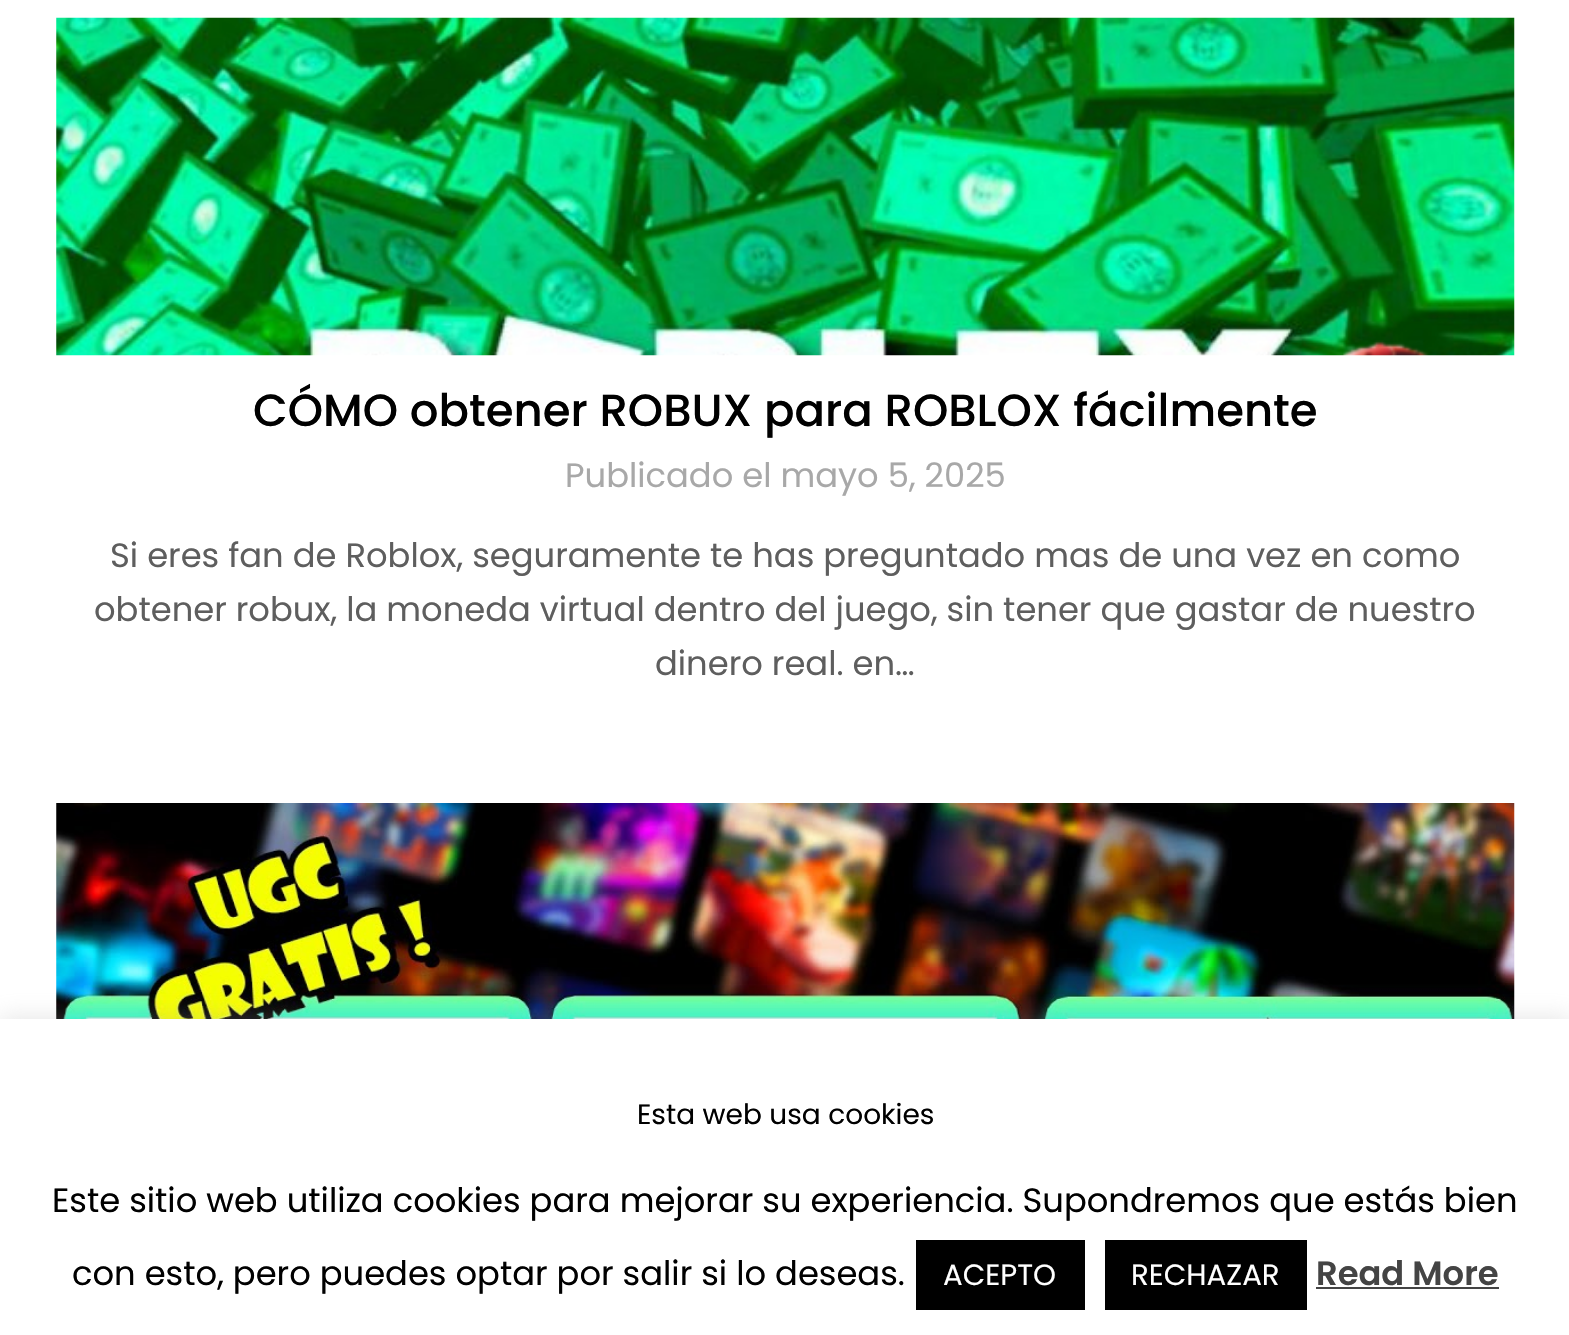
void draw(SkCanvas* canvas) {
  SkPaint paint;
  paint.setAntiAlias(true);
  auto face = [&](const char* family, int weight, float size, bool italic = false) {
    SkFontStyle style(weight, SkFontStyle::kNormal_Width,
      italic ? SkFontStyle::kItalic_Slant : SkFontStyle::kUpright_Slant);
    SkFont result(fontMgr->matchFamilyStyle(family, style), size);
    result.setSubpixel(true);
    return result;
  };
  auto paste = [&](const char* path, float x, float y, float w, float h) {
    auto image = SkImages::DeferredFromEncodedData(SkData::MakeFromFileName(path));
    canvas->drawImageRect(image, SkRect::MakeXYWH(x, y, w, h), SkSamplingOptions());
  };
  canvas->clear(0xffffffff);
  paste("img/1.png", 56, 17, 1459, 339);
  paste("img/2.png", 56, 803, 1459, 216);
  paint.setColor(0x4dacabab);
  paint.setMaskFilter(SkMaskFilter::MakeBlur(kNormal_SkBlurStyle, 11));
  canvas->drawRect(SkRect::MakeXYWH(0, 1017, 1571, 317), paint);
  paint.setMaskFilter(nullptr);
  {
    const struct { float x, y, w, h; SkColor color; } items[] = {
      {0, 1019, 1569, 316, 0xffffffff},
      {916, 1240, 169, 70, 0xff000000},
      {1105, 1240, 202, 70, 0xff000000},
      {1316, 1287, 183, 2, 0xff444444},
    };
    for (auto [x, y, w, h, color] : items) {
      paint.setColor(color);
      canvas->drawRect(SkRect::MakeXYWH(x, y, w, h), paint);
    }
  }
  auto f0 = face("Poppins", 500, 45);
  paint.setColor(0xff000000);
  canvas->drawString("CÓMO obtener ROBUX para ROBLOX fácilmente", 253, 426, f0, paint);
  auto f1 = face("Poppins", 400, 33.75f);
  paint.setColor(0xffa8a8a8);
  canvas->drawString("Publicado el mayo 5, 2025", 565, 487, f1, paint);
  paint.setColor(0xff5e5e5e);
  {
    const struct { const char* s; float x, y; } items[] = {
      {"Si eres fan de Roblox, seguramente te has preguntado mas de una vez en como", 110, 567},
      {"obtener robux, la moneda virtual dentro del juego, sin tener que gastar de nuestro", 94, 621},
      {"dinero real. en…", 655, 675},
    };
    for (auto [s, x, y] : items) {
      canvas->drawString(s, x, y, f1, paint);
    }
  }
  auto f2 = face("Poppins", 400, 28);
  paint.setColor(0xff000000);
  canvas->drawString("Esta web usa cookies", 637, 1124, f2, paint);
  canvas->drawString("Este sitio web utiliza cookies para mejorar su experiencia. Supondremos que estás bien", 52, 1212, f1, paint);
  canvas->drawString("con esto, pero puedes optar por salir si lo deseas.", 72, 1285, f1, paint);
  auto f3 = face("Poppins", 400, 29.25f);
  paint.setColor(0xffffffff);
  canvas->drawString("ACEPTO", 943, 1285, f3, paint);
  canvas->drawString("RECHAZAR", 1131, 1285, f3, paint);
  auto f4 = face("Poppins", 600, 33.75f);
  paint.setColor(0xff444444);
  canvas->drawString("Read More", 1316, 1285, f4, paint);
}
